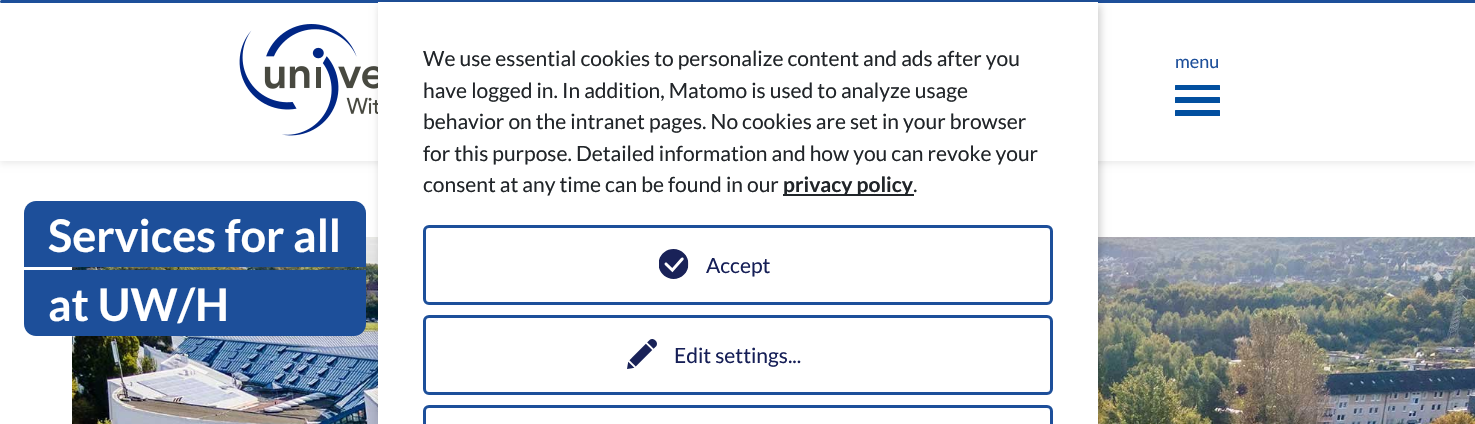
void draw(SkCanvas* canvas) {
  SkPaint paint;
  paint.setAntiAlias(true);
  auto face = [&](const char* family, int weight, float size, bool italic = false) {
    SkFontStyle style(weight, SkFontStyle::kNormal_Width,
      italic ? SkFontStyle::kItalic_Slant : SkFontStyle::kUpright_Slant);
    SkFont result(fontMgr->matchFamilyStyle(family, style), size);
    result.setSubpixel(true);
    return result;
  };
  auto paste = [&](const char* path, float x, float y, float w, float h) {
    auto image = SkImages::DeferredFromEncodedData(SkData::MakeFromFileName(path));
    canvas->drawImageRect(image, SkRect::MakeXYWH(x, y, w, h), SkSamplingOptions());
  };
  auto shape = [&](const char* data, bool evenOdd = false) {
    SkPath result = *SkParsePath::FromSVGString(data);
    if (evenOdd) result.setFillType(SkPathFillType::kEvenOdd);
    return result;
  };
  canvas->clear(0xffffffff);
  paint.setColor(0x12000000);
  paint.setMaskFilter(SkMaskFilter::MakeBlur(kNormal_SkBlurStyle, 3));
  canvas->drawRect(SkRect::MakeXYWH(0, 3, 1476, 161), paint);
  paint.setMaskFilter(nullptr);
  paint.setColor(0xffffffff);
  canvas->drawRect(SkRect::MakeXYWH(0, 0, 1475, 161), paint);
  paint.setColor(0xff1d4f9a);
  canvas->drawRoundRect(SkRect::MakeXYWH(0, 0, 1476, 3), 1.5f, 1.5f, paint);
  paste("img/3.png", 239, 24, 139, 112);
  paste("img/4.png", 72, 237, 1403, 187);
  paint.setColor(0x33000000);
  paint.setMaskFilter(SkMaskFilter::MakeBlur(kNormal_SkBlurStyle, 4));
  canvas->drawRect(SkRect::MakeXYWH(380, 5, 720, 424), paint);
  paint.setMaskFilter(nullptr);
  paint.setColor(0xffffffff);
  canvas->drawRect(SkRect::MakeXYWH(378, 2, 720, 422), paint);
  paint.setColor(0xff212529);
  canvas->drawRect(SkRect::MakeXYWH(783, 194, 131, 2), paint);
  paint.setStroke(true);
  paint.setStrokeWidth(3);
  paint.setColor(0xff1d4f9a);
  canvas->drawRoundRect(SkRect::MakeXYWH(424.5f, 226.5f, 627, 77), 4.5f, 4.5f, paint);
  paste("img/1.png", 659, 249, 30, 30);
  canvas->drawRoundRect(SkRect::MakeXYWH(424.5f, 406.5f, 627, 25), 4.5f, 4.5f, paint);
  canvas->drawRoundRect(SkRect::MakeXYWH(424.5f, 316.5f, 627, 77), 4.5f, 4.5f, paint);
  paste("img/2.png", 627, 339, 30, 30);
  paint.setStroke(false);
  paint.setColor(0xff024f9f);
  canvas->drawRoundRect(SkRect::MakeXYWH(1175, 85, 45, 5), 0.5f, 0.5f, paint);
  canvas->drawRoundRect(SkRect::MakeXYWH(1175, 97, 45, 6), 0.5f, 0.5f, paint);
  canvas->drawRoundRect(SkRect::MakeXYWH(1175, 110, 45, 6), 0.5f, 0.5f, paint);
  paint.setColor(0xff1d4f9a);
  canvas->drawPath(shape("M36 201H354C360.5 201 366 206.5 366 213V267H24V213C24 206.5 29.5 201 36 201Z"), paint);
  canvas->drawPath(shape("M24 270H366V324C366 330.5 360.5 336 354 336H36C29.5 336 24 330.5 24 324Z"), paint);
  auto f0 = face("Lato", 400, 21);
  paint.setColor(0xff212529);
  {
    const struct { const char* s; float x, y; } items[] = {
      {"We use essential cookies to personalize content and ads after you", 423, 66},
      {"have logged in. In addition, Matomo is used to analyze usage", 423, 98},
      {"behavior on the intranet pages. No cookies are set in your browser", 423, 129},
      {"for this purpose. Detailed information and how you can revoke your", 423, 161},
      {"consent at any time can be found in our", 423, 192},
    };
    for (auto [s, x, y] : items) {
      canvas->drawString(s, x, y, f0, paint);
    }
  }
  auto f1 = face("Lato", 700, 21);
  canvas->drawString("privacy policy", 783, 192, f1, paint);
  canvas->drawString(".", 913, 192, f0, paint);
  paint.setColor(0xff161f57);
  canvas->drawString("Accept", 706, 273, f0, paint);
  canvas->drawString("Edit settings...", 674, 363, f0, paint);
  auto f2 = face("Lato", 400, 18);
  paint.setColor(0xff1d4f9a);
  canvas->drawString("menu", 1175, 68, f2, paint);
  auto f3 = face("Lato", 700, 45);
  paint.setColor(0xffffffff);
  canvas->drawString("Services for all", 48, 252, f3, paint);
  canvas->drawString("at UW/H", 48, 321, f3, paint);
}
